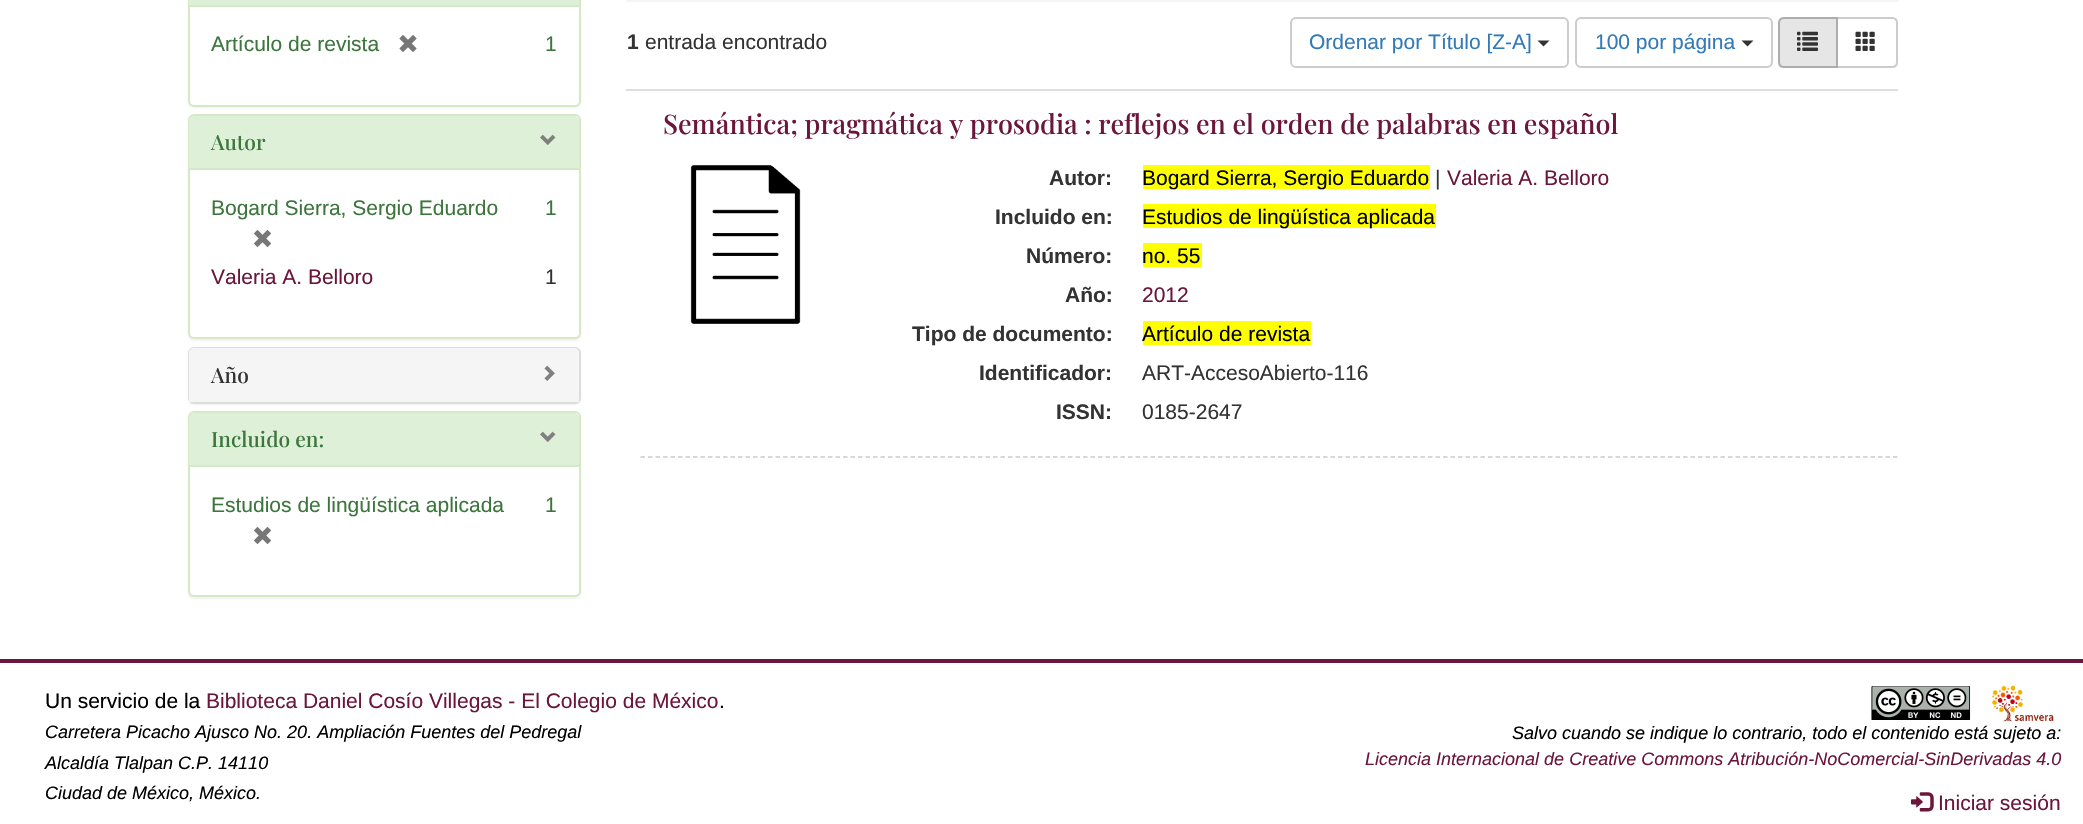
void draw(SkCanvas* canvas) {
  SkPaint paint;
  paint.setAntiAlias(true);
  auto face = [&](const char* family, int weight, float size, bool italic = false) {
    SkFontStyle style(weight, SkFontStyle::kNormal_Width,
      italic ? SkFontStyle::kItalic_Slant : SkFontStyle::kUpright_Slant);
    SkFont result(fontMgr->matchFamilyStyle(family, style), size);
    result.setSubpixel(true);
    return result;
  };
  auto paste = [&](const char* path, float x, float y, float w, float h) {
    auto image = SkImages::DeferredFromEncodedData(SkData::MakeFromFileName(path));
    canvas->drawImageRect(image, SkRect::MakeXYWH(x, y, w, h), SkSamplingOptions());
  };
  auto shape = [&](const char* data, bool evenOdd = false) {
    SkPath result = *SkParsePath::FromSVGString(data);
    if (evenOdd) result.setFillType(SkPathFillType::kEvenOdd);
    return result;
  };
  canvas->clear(0xffffffff);
  paint.setColor(0x0d000000);
  paint.setMaskFilter(SkMaskFilter::MakeBlur(kNormal_SkBlurStyle, 1));
  canvas->drawRoundRect(SkRect::MakeXYWH(188, -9, 393, 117), 6, 6, paint);
  paint.setMaskFilter(nullptr);
  paint.setColor(0xffffffff);
  canvas->drawRoundRect(SkRect::MakeXYWH(189, -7, 391, 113), 5, 5, paint);
  paint.setStroke(true);
  paint.setStrokeWidth(2);
  paint.setColor(0xffd6e9c6);
  canvas->drawRoundRect(SkRect::MakeXYWH(189, -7, 391, 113), 5, 5, paint);
  paint.setStroke(false);
  paint.setColor(0xffdff0d8);
  canvas->drawRect(SkRect::MakeXYWH(189, 0, 390, 5), paint);
  paint.setColor(0xffd6e9c6);
  canvas->drawRect(SkRect::MakeXYWH(189, 5, 390, 2), paint);
  paste("img/1.png", 399, 35, 18, 17);
  paint.setColor(0x0d000000);
  paint.setMaskFilter(SkMaskFilter::MakeBlur(kNormal_SkBlurStyle, 1));
  canvas->drawRoundRect(SkRect::MakeXYWH(188, 116, 393, 225), 6, 6, paint);
  paint.setMaskFilter(nullptr);
  paint.setColor(0xffffffff);
  canvas->drawRoundRect(SkRect::MakeXYWH(189, 115, 391, 223), 5, 5, paint);
  paint.setStroke(true);
  paint.setColor(0xffd6e9c6);
  canvas->drawRoundRect(SkRect::MakeXYWH(189, 115, 391, 223), 5, 5, paint);
  paint.setStroke(false);
  paint.setColor(0xffdff0d8);
  canvas->drawPath(shape("M194 116H574C577 116 579 118 579 121V168H189V121C189 118 191 116 194 116Z"), paint);
  paste("img/2.png", 540, 134, 16, 11);
  paint.setColor(0xffd6e9c6);
  canvas->drawRect(SkRect::MakeXYWH(189, 168, 390, 2), paint);
  paste("img/3.png", 254, 230, 17, 17);
  paint.setColor(0x0d000000);
  paint.setMaskFilter(SkMaskFilter::MakeBlur(kNormal_SkBlurStyle, 1));
  canvas->drawRoundRect(SkRect::MakeXYWH(188, 348, 393, 57), 6, 6, paint);
  paint.setMaskFilter(nullptr);
  paint.setStroke(true);
  paint.setColor(0xffdddddd);
  canvas->drawRoundRect(SkRect::MakeXYWH(189, 348, 391, 55), 5, 5, paint);
  paint.setStroke(false);
  paint.setColor(0xfff5f5f5);
  canvas->drawPath(shape("M194 348H574C577 348 579 350 579 353V402H189V353C189 350 191 348 194 348Z"), paint);
  paste("img/4.png", 544, 365, 11, 16);
  paint.setColor(0x0d000000);
  paint.setMaskFilter(SkMaskFilter::MakeBlur(kNormal_SkBlurStyle, 1));
  canvas->drawRoundRect(SkRect::MakeXYWH(188, 413, 393, 186), 6, 6, paint);
  paint.setMaskFilter(nullptr);
  paint.setColor(0xffffffff);
  canvas->drawRoundRect(SkRect::MakeXYWH(189, 412, 391, 184), 5, 5, paint);
  paint.setStroke(true);
  paint.setColor(0xffd6e9c6);
  canvas->drawRoundRect(SkRect::MakeXYWH(189, 412, 391, 184), 5, 5, paint);
  paint.setStroke(false);
  paint.setColor(0xffdff0d8);
  canvas->drawPath(shape("M194 413H574C577 413 579 415 579 418V465H189V418C189 415 191 413 194 413Z"), paint);
  paste("img/2.png", 540, 431, 16, 11);
  paint.setColor(0xffd6e9c6);
  canvas->drawRect(SkRect::MakeXYWH(189, 465, 390, 2), paint);
  paste("img/3.png", 254, 527, 17, 17);
  paint.setColor(0xfff5f5f5);
  canvas->drawRect(SkRect::MakeXYWH(626, 0, 1272, 2), paint);
  paint.setColor(0xffdddddd);
  canvas->drawRect(SkRect::MakeXYWH(626, 89, 1272, 2), paint);
  paint.setStroke(true);
  paint.setColor(0xffcccccc);
  canvas->drawRoundRect(SkRect::MakeXYWH(1291, 18, 277, 49), 5, 5, paint);
  paint.setStroke(false);
  paint.setColor(0xff333333);
  canvas->drawPath(shape("M1537.5 40.5H1549.5L1543.5 46.5Z"), paint);
  paint.setStroke(true);
  paint.setColor(0xffcccccc);
  canvas->drawRoundRect(SkRect::MakeXYWH(1576, 18, 196, 49), 5, 5, paint);
  paint.setStroke(false);
  paint.setColor(0xff333333);
  canvas->drawPath(shape("M1741.5 40.5H1753.5L1747.5 46.5Z"), paint);
  paint.setStroke(true);
  paint.setColor(0xffcccccc);
  canvas->drawPath(shape("M1837 18H1892C1895 18 1897 20 1897 23V62C1897 65 1895 67 1892 67H1837Z"), paint);
  paint.setStroke(false);
  paint.setColor(0xffe6e6e6);
  canvas->drawPath(shape("M1784 18H1837V67H1784C1781 67 1779 65 1779 62V23C1779 20 1781 18 1784 18Z"), paint);
  paint.setStroke(true);
  paint.setColor(0xffadadad);
  canvas->drawPath(shape("M1784 18H1837V67H1784C1781 67 1779 65 1779 62V23C1779 20 1781 18 1784 18Z"), paint);
  paste("img/5.png", 1797, 31, 21, 20);
  paste("img/6.png", 1855, 31, 20, 20);
  paint.setStrokeWidth(1.5f);
  paint.setColor(0xffcccccc);
  paint.setPathEffect(SkDashPathEffect::Make({{4.5f, 3}}, 0));
  canvas->drawPath(shape("M640.5 457H1897.5"), paint);
  paint.setPathEffect(nullptr);
  paste("img/7.png", 690, 165, 111, 159);
  paint.setStroke(false);
  {
    const struct { float x, y, w, h; SkColor color; } items[] = {
      {1143, 165, 287, 24, 0xffffff00},
      {1143, 204, 293, 24, 0xffffff00},
      {1143, 243, 59, 24, 0xffffff00},
      {1143, 321, 168, 24, 0xffffff00},
      {0, 659, 2083, 4, 0xff6b163a},
    };
    for (auto [x, y, w, h, color] : items) {
      paint.setColor(color);
      canvas->drawRect(SkRect::MakeXYWH(x, y, w, h), paint);
    }
  }
  paste("img/8.png", 1871, 686, 100, 34);
  paste("img/9.png", 1992, 685, 62, 37);
  paste("img/10.png", 1911, 792, 23, 20);
  auto f0 = face("Liberation Sans", 400, 21);
  paint.setColor(0xff3c763d);
  canvas->drawString("Artículo de revista", 211, 51, f0, paint);
  canvas->drawString("1", 545, 51, f0, paint);
  auto f1 = face("Playfair Display", 500, 21);
  canvas->drawString("Autor", 211, 150, f1, paint);
  canvas->drawString("Bogard Sierra, Sergio Eduardo", 211, 215, f0, paint);
  canvas->drawString("1", 545, 215, f0, paint);
  paint.setColor(0xff6b163a);
  canvas->drawString("Valeria A. Belloro", 211, 284, f0, paint);
  paint.setColor(0xff333333);
  canvas->drawString("1", 545, 284, f0, paint);
  canvas->drawString("Año", 211, 383, f1, paint);
  paint.setColor(0xff3c763d);
  canvas->drawString("Incluido en:", 211, 447, f1, paint);
  canvas->drawString("Estudios de lingüística aplicada", 211, 512, f0, paint);
  canvas->drawString("1", 545, 512, f0, paint);
  auto f2 = face("Liberation Sans", 700, 21);
  paint.setColor(0xff333333);
  canvas->drawString("1", 627, 49, f2, paint);
  canvas->drawString("entrada encontrado", 645, 49, f0, paint);
  paint.setColor(0xff337ab7);
  canvas->drawString("Ordenar por Título [Z-A]", 1309, 49, f0, paint);
  canvas->drawString("100 por página", 1595, 49, f0, paint);
  auto f3 = face("Playfair Display", 500, 27);
  paint.setColor(0xff6b163a);
  canvas->drawString("Semántica; pragmática y prosodia : reflejos en el orden de palabras en español", 663, 134, f3, paint);
  paint.setColor(0xff333333);
  canvas->drawString("Autor:", 1049, 185, f2, paint);
  paint.setColor(0xff000000);
  canvas->drawString("Bogard Sierra, Sergio Eduardo", 1142, 185, f0, paint);
  paint.setColor(0xff333333);
  canvas->drawString("|", 1435, 185, f0, paint);
  paint.setColor(0xff6b163a);
  canvas->drawString("Valeria A. Belloro", 1447, 185, f0, paint);
  paint.setColor(0xff333333);
  canvas->drawString("Incluido en:", 995, 224, f2, paint);
  paint.setColor(0xff000000);
  canvas->drawString("Estudios de lingüística aplicada", 1142, 224, f0, paint);
  paint.setColor(0xff333333);
  canvas->drawString("Número:", 1026, 263, f2, paint);
  paint.setColor(0xff000000);
  canvas->drawString("no. 55", 1142, 263, f0, paint);
  paint.setColor(0xff333333);
  canvas->drawString("Año:", 1065, 302, f2, paint);
  paint.setColor(0xff6b163a);
  canvas->drawString("2012", 1142, 302, f0, paint);
  paint.setColor(0xff333333);
  canvas->drawString("Tipo de documento:", 912, 341, f2, paint);
  paint.setColor(0xff000000);
  canvas->drawString("Artículo de revista", 1142, 341, f0, paint);
  paint.setColor(0xff333333);
  canvas->drawString("Identificador:", 979, 380, f2, paint);
  canvas->drawString("ART-AccesoAbierto-116", 1142, 380, f0, paint);
  canvas->drawString("ISSN:", 1056, 419, f2, paint);
  canvas->drawString("0185-2647", 1142, 419, f0, paint);
  paint.setColor(0xff000000);
  canvas->drawString("Un servicio de la", 45, 708, f0, paint);
  paint.setColor(0xff6b163a);
  canvas->drawString("Biblioteca Daniel Cosío Villegas - El Colegio de México", 206, 708, f0, paint);
  paint.setColor(0xff000000);
  canvas->drawString(".", 719, 708, f0, paint);
  auto f4 = face("Liberation Sans", 400, 18, true);
  {
    const struct { const char* s; float x, y; } items[] = {
      {"Carretera Picacho Ajusco No. 20. Ampliación Fuentes del Pedregal", 45, 738},
      {"Alcaldía Tlalpan C.P. 14110", 45, 769},
      {"Ciudad de México, México.", 45, 799},
      {"Salvo cuando se indique lo contrario, todo el contenido está sujeto a:", 1512, 739},
    };
    for (auto [s, x, y] : items) {
      canvas->drawString(s, x, y, f4, paint);
    }
  }
  paint.setColor(0xff6b163a);
  canvas->drawString("Licencia Internacional de Creative Commons Atribución-NoComercial-SinDerivadas 4.0", 1365, 765, f4, paint);
  canvas->drawString("Iniciar sesión", 1938, 810, f0, paint);
}
